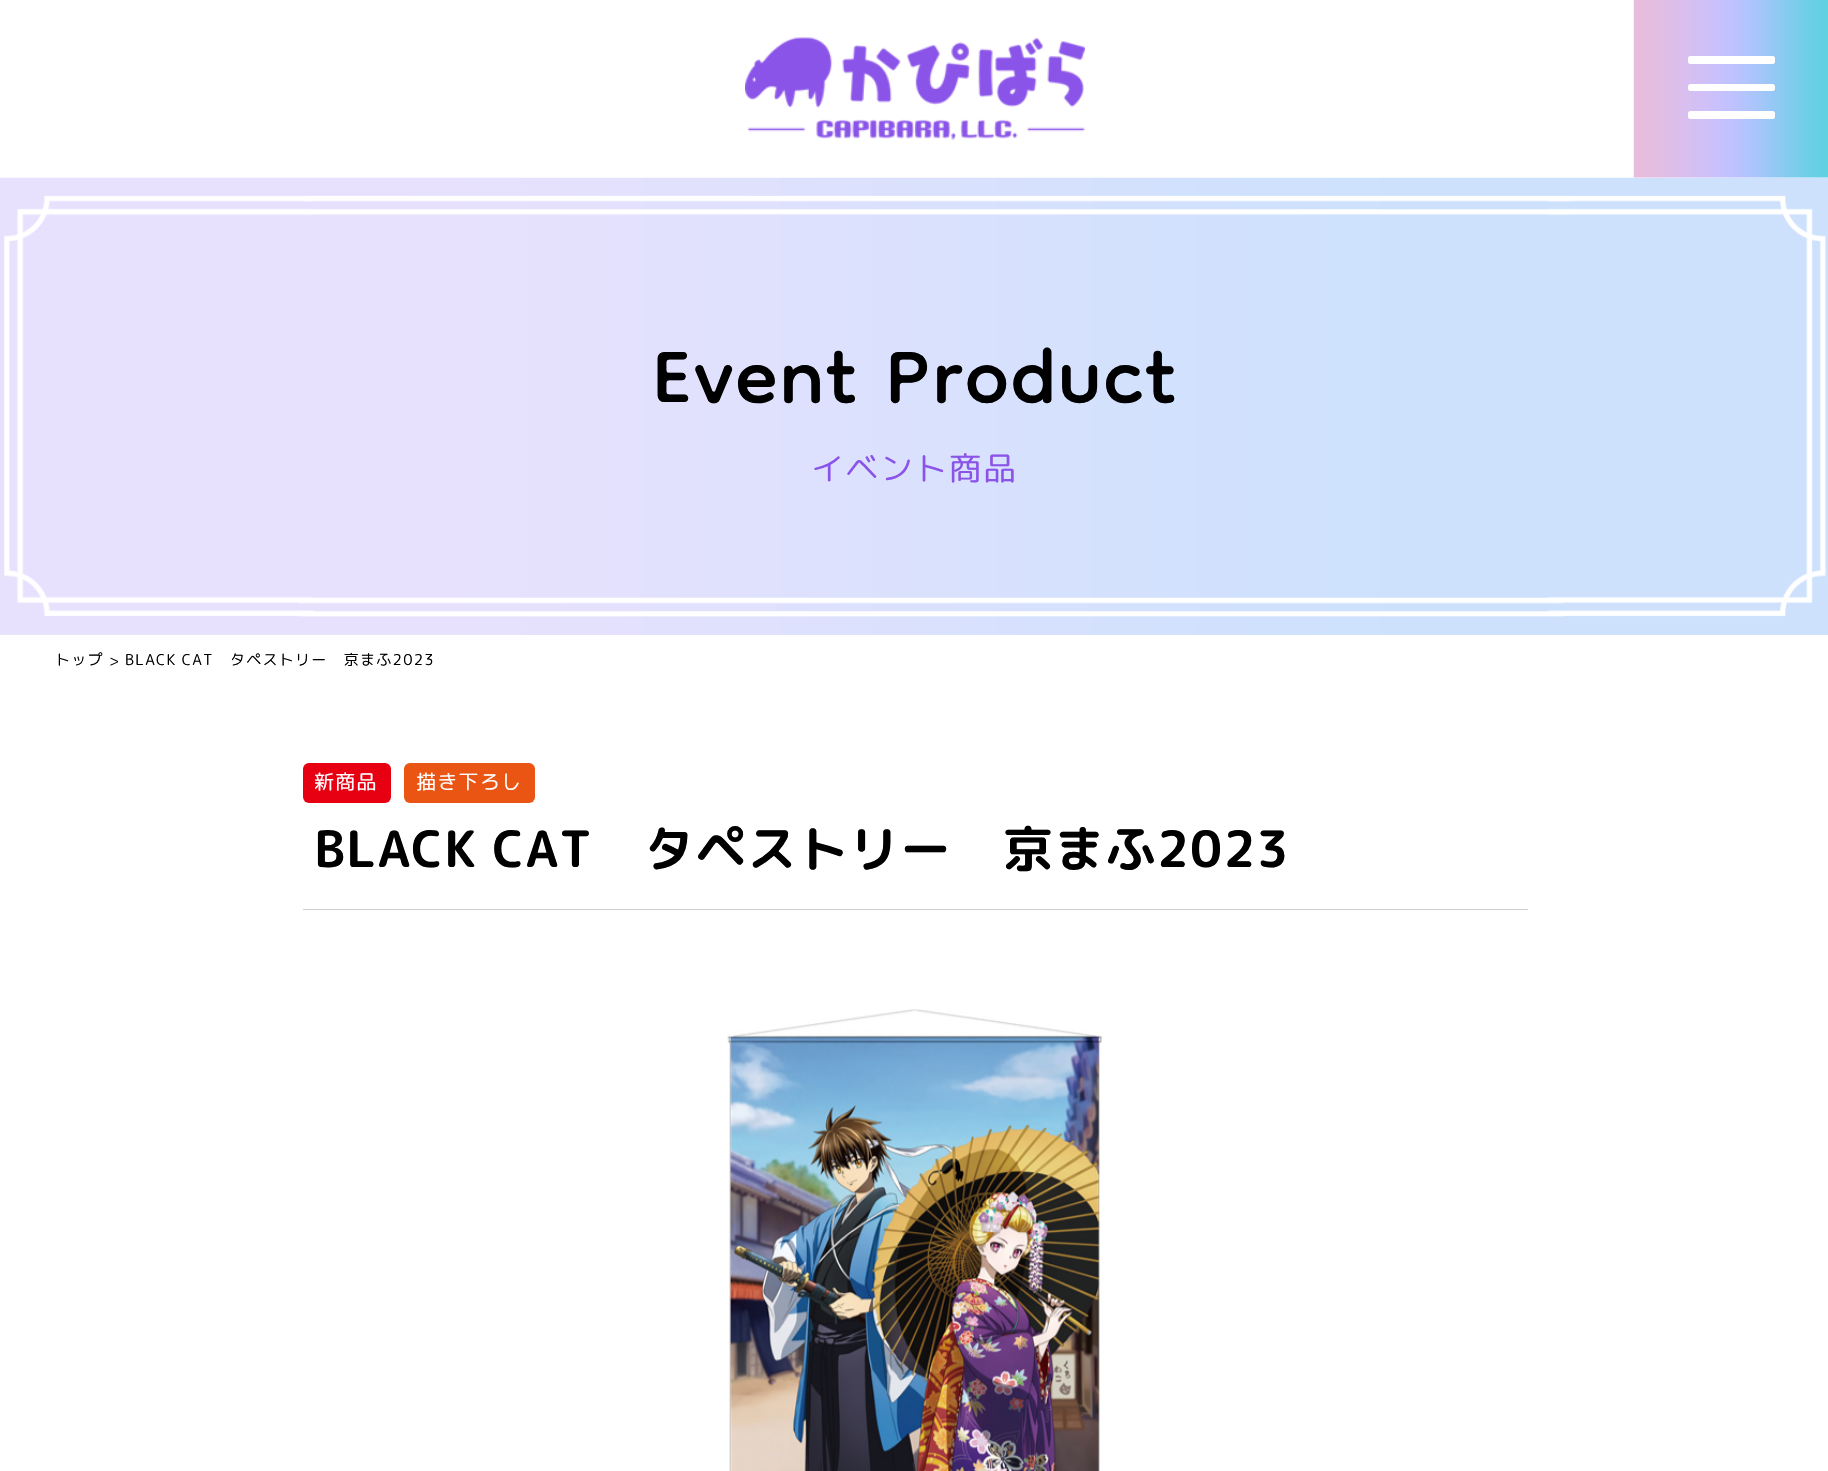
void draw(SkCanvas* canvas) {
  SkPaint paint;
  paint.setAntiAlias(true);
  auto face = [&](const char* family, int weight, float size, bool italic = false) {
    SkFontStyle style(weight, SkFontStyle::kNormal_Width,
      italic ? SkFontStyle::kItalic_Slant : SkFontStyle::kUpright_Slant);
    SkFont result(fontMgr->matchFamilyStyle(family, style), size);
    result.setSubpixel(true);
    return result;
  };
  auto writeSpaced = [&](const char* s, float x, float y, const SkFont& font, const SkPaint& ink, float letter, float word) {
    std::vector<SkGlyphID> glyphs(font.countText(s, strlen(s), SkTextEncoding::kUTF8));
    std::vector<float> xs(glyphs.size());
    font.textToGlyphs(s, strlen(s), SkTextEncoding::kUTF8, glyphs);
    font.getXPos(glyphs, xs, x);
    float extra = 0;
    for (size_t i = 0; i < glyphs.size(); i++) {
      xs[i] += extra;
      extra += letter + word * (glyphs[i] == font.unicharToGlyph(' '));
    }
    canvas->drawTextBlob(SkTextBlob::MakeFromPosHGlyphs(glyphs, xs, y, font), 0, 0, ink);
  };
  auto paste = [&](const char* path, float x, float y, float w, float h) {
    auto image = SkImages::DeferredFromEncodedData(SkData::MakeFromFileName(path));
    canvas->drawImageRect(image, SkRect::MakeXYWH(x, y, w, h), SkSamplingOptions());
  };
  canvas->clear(0xffffffff);
  paste("img/1.png", 745, 37, 340, 103);
  paste("img/3.png", 0, 177, 1828, 458);
  paste("img/2.png", 1633, 0, 195, 178);
  paint.setColor(0xffffffff);
  canvas->drawRoundRect(SkRect::MakeXYWH(1688, 56, 87, 8), 2.5f, 2.5f, paint);
  canvas->drawRoundRect(SkRect::MakeXYWH(1688, 84, 87, 7), 2.5f, 2.5f, paint);
  canvas->drawRoundRect(SkRect::MakeXYWH(1688, 111, 87, 8), 2.5f, 2.5f, paint);
  paint.setColor(0xffe60012);
  canvas->drawRoundRect(SkRect::MakeXYWH(303, 763, 88, 40), 6, 6, paint);
  paint.setColor(0xffea5514);
  canvas->drawRoundRect(SkRect::MakeXYWH(404, 763, 131, 40), 6, 6, paint);
  paint.setColor(0xffcfcfcf);
  canvas->drawRect(SkRect::MakeXYWH(303, 909, 1225, 1), paint);
  paste("img/4.png", 727, 1009, 376, 462);
  auto f0 = face("Dongle", 400, 125);
  paint.setColor(0xff000000);
  writeSpaced("Event Product", 652, 402, f0, paint, 2, 0);
  auto f1 = face("Rounded Mplus 1c", 400, 32.5f);
  paint.setColor(0xff8b54e9);
  writeSpaced("イベント商品", 811, 480, f1, paint, 2, 0);
  auto f2 = face("Rounded Mplus 1c", 400, 15);
  paint.setColor(0xff000000);
  {
    const struct { const char* s; float x, y; } items[] = {
      {"トップ", 55, 665},
      {">", 109, 666},
      {"BLACK CAT　タペストリー　京まふ2023", 125, 665},
    };
    for (auto [s, x, y] : items) {
      writeSpaced(s, x, y, f2, paint, 1.25f, 0);
    }
  }
  auto f3 = face("Rounded Mplus 1c", 400, 20);
  paint.setColor(0xffffffff);
  writeSpaced("新商品", 314, 789, f3, paint, 1.25f, 0);
  writeSpaced("描き下ろし", 416, 789, f3, paint, 1.25f, 0);
  auto f4 = face("Rounded Mplus 1c Bold", 700, 50);
  paint.setColor(0xff000000);
  writeSpaced("BLACK CAT　タペストリー　京まふ2023", 314, 867, f4, paint, 1.25f, 0);
}
